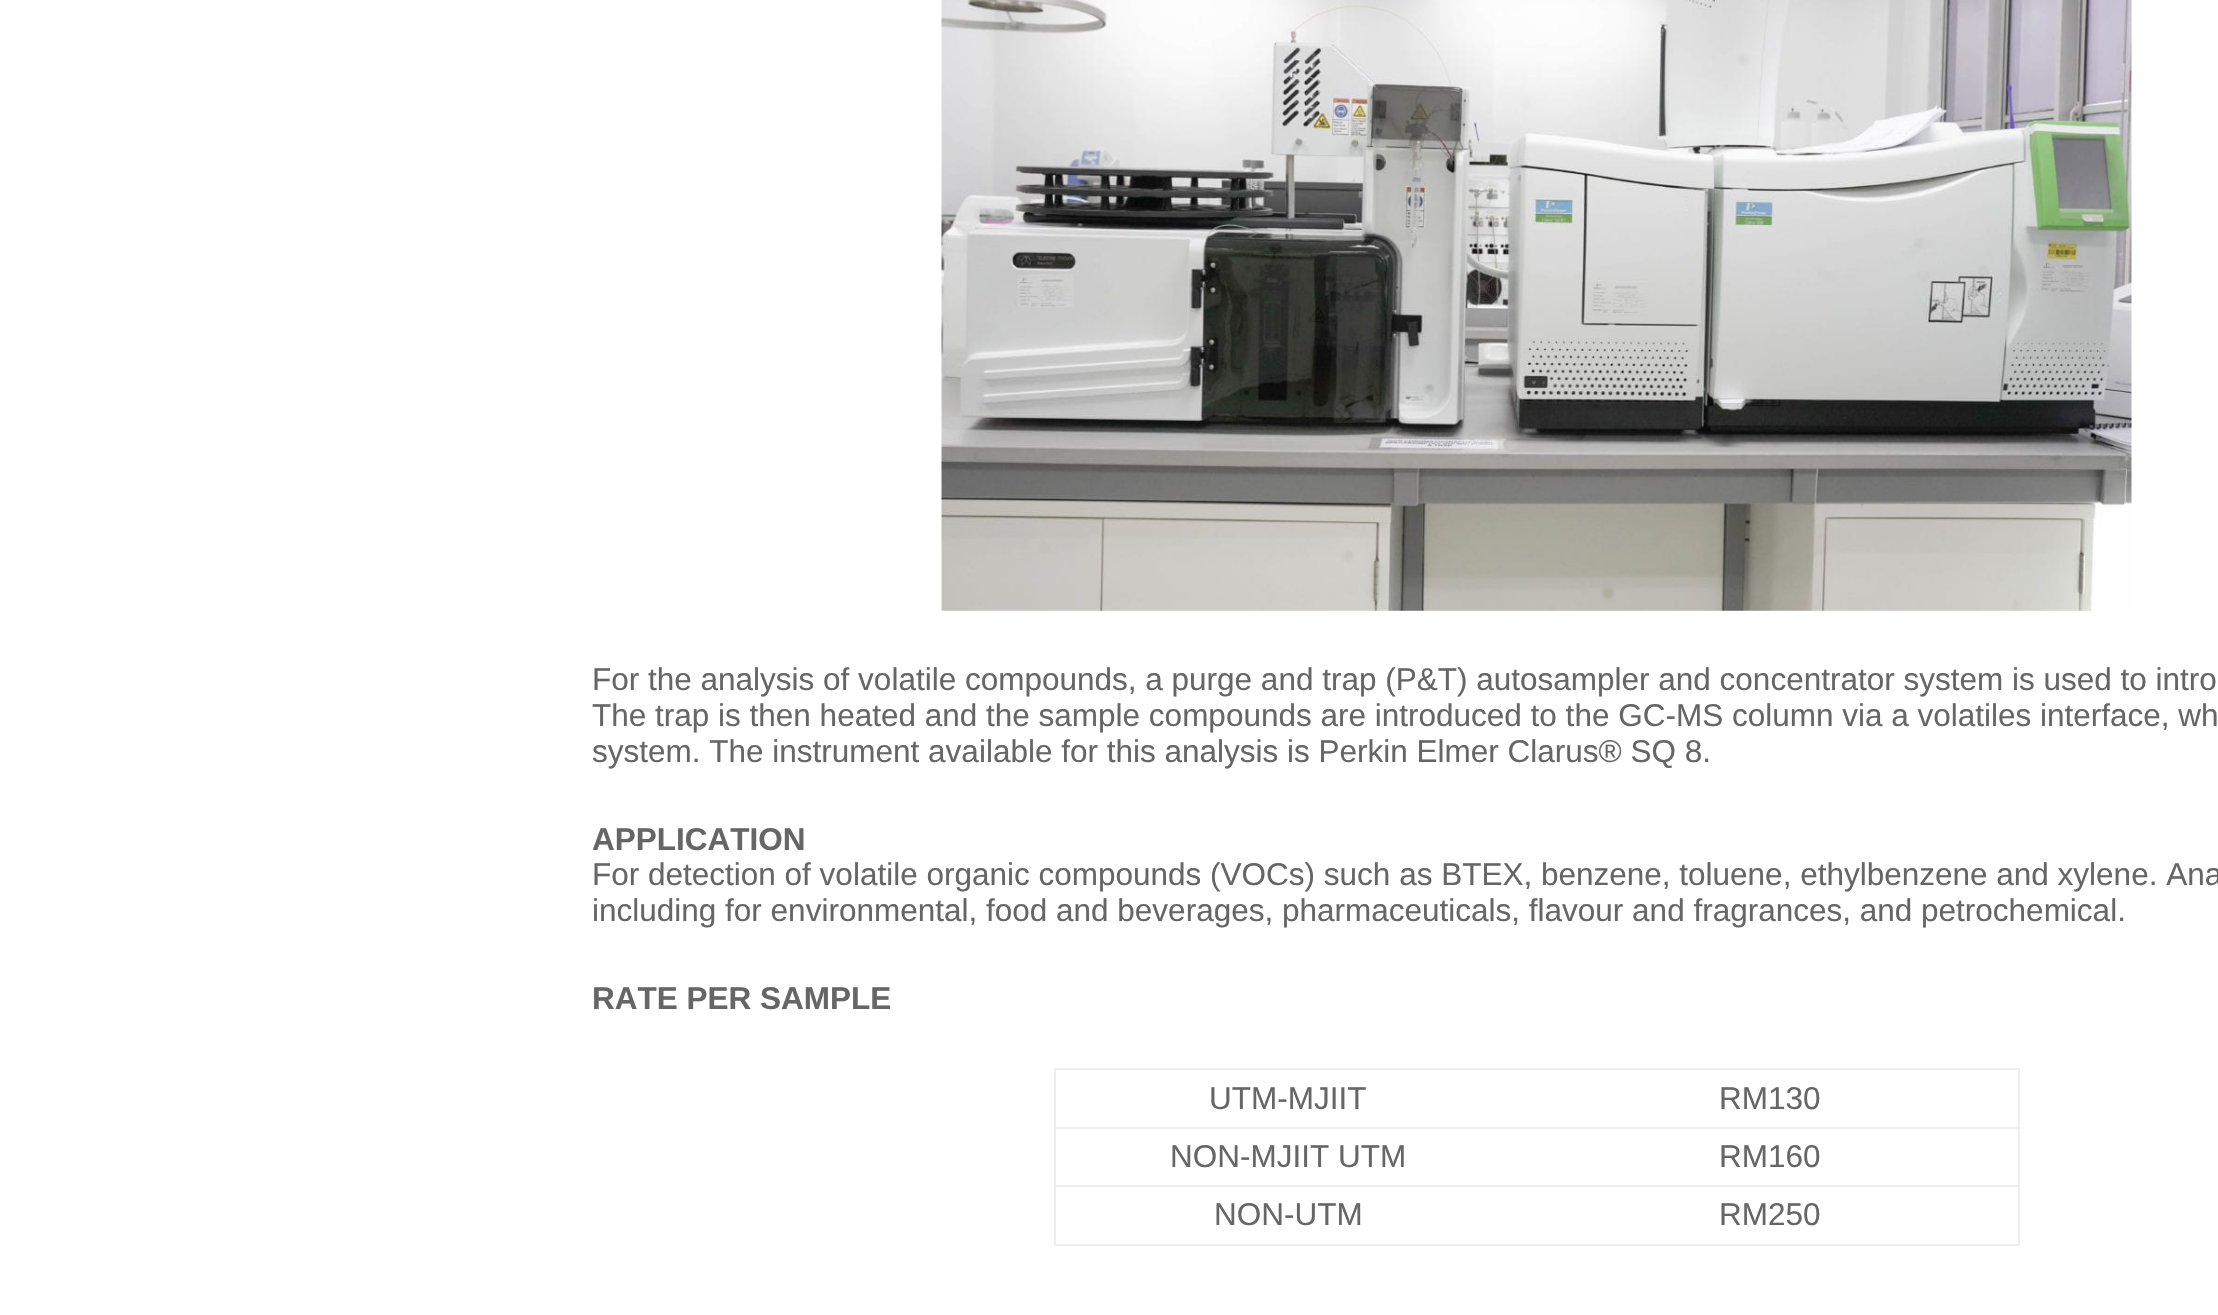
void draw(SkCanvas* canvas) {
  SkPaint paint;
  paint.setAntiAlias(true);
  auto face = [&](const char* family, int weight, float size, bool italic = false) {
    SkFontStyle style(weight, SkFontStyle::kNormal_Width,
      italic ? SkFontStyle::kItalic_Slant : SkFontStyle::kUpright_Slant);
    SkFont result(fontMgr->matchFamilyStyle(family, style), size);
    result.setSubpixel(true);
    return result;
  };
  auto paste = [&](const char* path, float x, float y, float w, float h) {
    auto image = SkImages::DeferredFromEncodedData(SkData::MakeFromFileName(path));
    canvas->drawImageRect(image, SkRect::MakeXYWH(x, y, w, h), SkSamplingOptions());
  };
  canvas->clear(0xffffffff);
  paste("img/1.png", 941, 0, 1191, 611);
  {
    const struct { float x, y, w, h; SkColor color; } items[] = {
      {1054, 1068, 966, 2, 0xffeeeeee},
      {2018, 1068, 2, 178, 0xffeeeeee},
      {1054, 1244, 966, 2, 0xffeeeeee},
      {1054, 1068, 2, 178, 0xffeeeeee},
      {1054, 1127, 966, 2, 0xffeeeeee},
      {1054, 1185, 966, 2, 0xffeeeeee},
    };
    for (auto [x, y, w, h, color] : items) {
      paint.setColor(color);
      canvas->drawRect(SkRect::MakeXYWH(x, y, w, h), paint);
    }
  }
  auto f0 = face("Liberation Sans", 400, 31.5f);
  paint.setColor(0xff666666);
  {
    const struct { const char* s; float x, y; } items[] = {
      {"For the analysis of volatile compounds, a purge and trap (P&T) autosampler and concentrator system is used to intro", 592, 690},
      {"The trap is then heated and the sample compounds are introduced to the GC-MS column via a volatiles interface, wh", 592, 726},
      {"system. The instrument available for this analysis is Perkin Elmer Clarus® SQ 8.", 592, 762},
    };
    for (auto [s, x, y] : items) {
      canvas->drawString(s, x, y, f0, paint);
    }
  }
  auto f1 = face("Liberation Sans", 700, 31.5f);
  canvas->drawString("APPLICATION", 592, 850, f1, paint);
  canvas->drawString("For detection of volatile organic compounds (VOCs) such as BTEX, benzene, toluene, ethylbenzene and xylene. Ana", 592, 885, f0, paint);
  canvas->drawString("including for environmental, food and beverages, pharmaceuticals, flavour and fragrances, and petrochemical.", 592, 921, f0, paint);
  canvas->drawString("RATE PER SAMPLE", 592, 1009, f1, paint);
  {
    const struct { const char* s; float x, y; } items[] = {
      {"UTM-MJIIT", 1209, 1109},
      {"RM130", 1719, 1109},
      {"NON-MJIIT UTM", 1170, 1167},
      {"RM160", 1719, 1167},
      {"NON-UTM", 1214, 1225},
      {"RM250", 1719, 1225},
    };
    for (auto [s, x, y] : items) {
      canvas->drawString(s, x, y, f0, paint);
    }
  }
}
